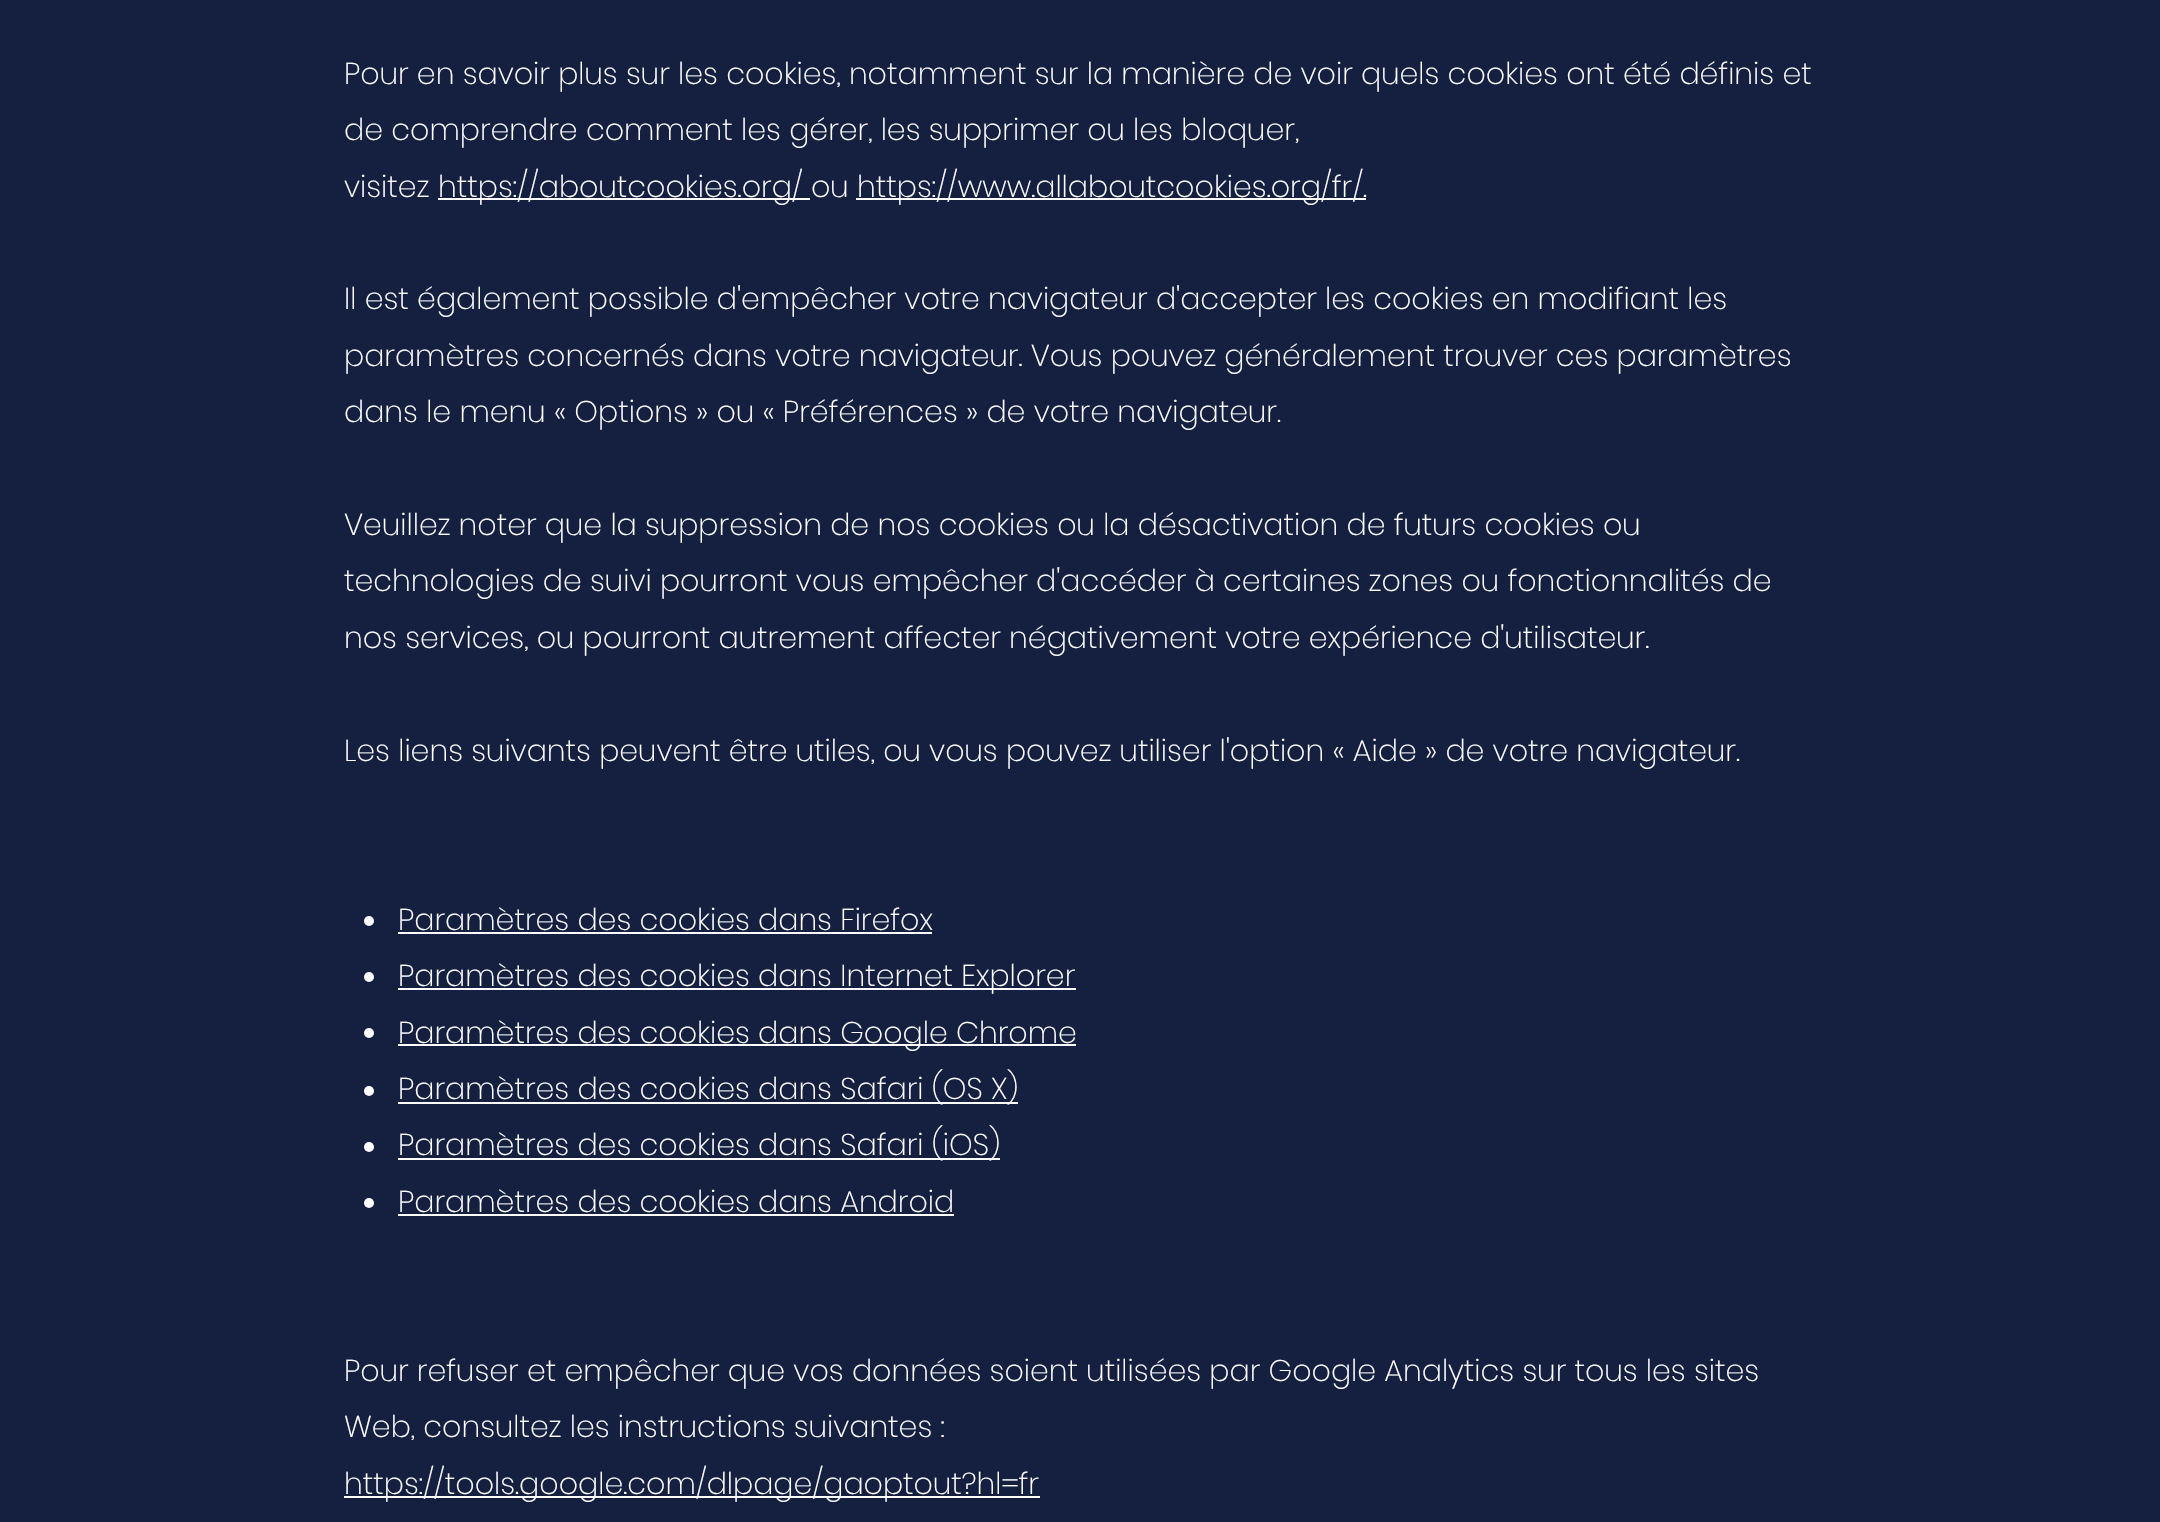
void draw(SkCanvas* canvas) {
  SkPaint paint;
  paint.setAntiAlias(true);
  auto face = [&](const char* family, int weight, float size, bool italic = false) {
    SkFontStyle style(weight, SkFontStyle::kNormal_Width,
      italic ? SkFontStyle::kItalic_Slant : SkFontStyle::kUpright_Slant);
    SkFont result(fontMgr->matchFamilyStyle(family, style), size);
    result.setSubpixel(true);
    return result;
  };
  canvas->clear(0xff152040);
  paint.setColor(0xffffffff);
  canvas->drawRect(SkRect::MakeXYWH(438, 198, 372, 2), paint);
  canvas->drawRect(SkRect::MakeXYWH(856, 198, 510, 2), paint);
  canvas->drawCircle(369, 921, 5, paint);
  canvas->drawRect(SkRect::MakeXYWH(398, 932, 534, 2), paint);
  canvas->drawCircle(369, 977, 5, paint);
  canvas->drawRect(SkRect::MakeXYWH(398, 988, 678, 2), paint);
  canvas->drawCircle(369, 1033, 5, paint);
  canvas->drawRect(SkRect::MakeXYWH(398, 1044, 678, 2), paint);
  canvas->drawCircle(369, 1091, 5, paint);
  canvas->drawRect(SkRect::MakeXYWH(398, 1102, 620, 2), paint);
  canvas->drawCircle(369, 1147, 5, paint);
  canvas->drawRect(SkRect::MakeXYWH(398, 1158, 602, 2), paint);
  canvas->drawCircle(369, 1203, 5, paint);
  canvas->drawRect(SkRect::MakeXYWH(398, 1214, 556, 2), paint);
  canvas->drawRect(SkRect::MakeXYWH(344, 1496, 696, 2), paint);
  auto f0 = face("Poppins", 200, 30);
  {
    const struct { const char* s; float x, y; } items[] = {
      {"Pour en savoir plus sur les cookies, notamment sur la manière de voir quels cookies ont été définis et", 344, 84},
      {"de comprendre comment les gérer, les supprimer ou les bloquer,", 344, 140},
      {"visitez", 344, 197},
      {"https://aboutcookies.org/ ou", 438, 197},
      {"https://www.allaboutcookies.org/fr/.", 857, 197},
      {"Il est également possible d'empêcher votre navigateur d'accepter les cookies en modifiant les", 344, 309},
      {"paramètres concernés dans votre navigateur. Vous pouvez généralement trouver ces paramètres", 344, 366},
      {"dans le menu « Options » ou « Préférences » de votre navigateur.", 344, 422},
      {"Veuillez noter que la suppression de nos cookies ou la désactivation de futurs cookies ou", 344, 535},
      {"technologies de suivi pourront vous empêcher d'accéder à certaines zones ou fonctionnalités de", 344, 591},
      {"nos services, ou pourront autrement affecter négativement votre expérience d'utilisateur.", 344, 648},
      {"Les liens suivants peuvent être utiles, ou vous pouvez utiliser l'option « Aide » de votre navigateur.", 344, 761},
      {"Paramètres des cookies dans Firefox", 398, 930},
      {"Paramètres des cookies dans Internet Explorer", 398, 986},
      {"Paramètres des cookies dans Google Chrome", 398, 1043},
      {"Paramètres des cookies dans Safari (OS X)", 398, 1099},
      {"Paramètres des cookies dans Safari (iOS)", 398, 1155},
      {"Paramètres des cookies dans Android", 398, 1212},
      {"Pour refuser et empêcher que vos données soient utilisées par Google Analytics sur tous les sites", 344, 1381},
      {"Web, consultez les instructions suivantes :", 344, 1437},
      {"https://tools.google.com/dlpage/gaoptout?hl=fr", 344, 1494},
    };
    for (auto [s, x, y] : items) {
      canvas->drawString(s, x, y, f0, paint);
    }
  }
}
